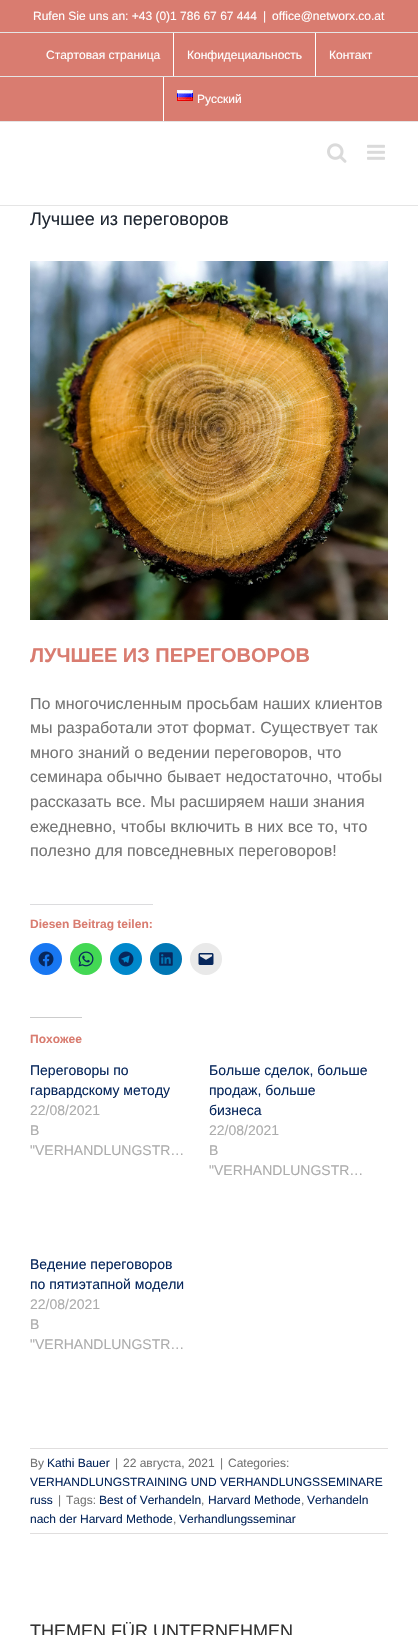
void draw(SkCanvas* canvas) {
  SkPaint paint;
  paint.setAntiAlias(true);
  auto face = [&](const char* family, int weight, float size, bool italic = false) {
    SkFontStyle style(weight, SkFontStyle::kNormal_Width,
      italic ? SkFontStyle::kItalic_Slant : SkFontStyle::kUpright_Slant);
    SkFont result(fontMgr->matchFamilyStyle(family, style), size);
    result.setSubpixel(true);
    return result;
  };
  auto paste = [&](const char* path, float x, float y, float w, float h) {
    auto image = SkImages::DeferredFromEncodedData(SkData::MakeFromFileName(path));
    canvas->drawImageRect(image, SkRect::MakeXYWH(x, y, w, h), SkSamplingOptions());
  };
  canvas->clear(0xffffffff);
  {
    const struct { float x, y, w, h; SkColor color; } items[] = {
      {0, 0, 418, 121, 0xffd97c70},
      {0, 121, 418, 1, 0xffe5e5e5},
      {0, 32, 418, 1, 0xffe5e5e5},
      {173, 33, 1, 44, 0xffffffff},
      {315, 33, 1, 44, 0xffffffff},
      {0, 76, 418, 1, 0xffe5e5e5},
      {163, 77, 1, 44, 0xffffffff},
    };
    for (auto [x, y, w, h, color] : items) {
      paint.setColor(color);
      canvas->drawRect(SkRect::MakeXYWH(x, y, w, h), paint);
    }
  }
  paste("img/1.png", 177, 90, 16, 11);
  paint.setColor(0xffe5e5e5);
  canvas->drawRect(SkRect::MakeXYWH(0, 205, 418, 1), paint);
  paste("img/2.png", 327, 143, 20, 20);
  paste("img/3.png", 367, 144, 18, 16);
  paste("img/4.png", 30, 261, 358, 359);
  paint.setColor(0xffdcdcde);
  canvas->drawRect(SkRect::MakeXYWH(30, 904, 123, 1), paint);
  paint.setColor(0xff1877f2);
  canvas->drawCircle(46, 959, 16, paint);
  paste("img/5.png", 38, 951, 16, 16);
  paint.setColor(0xff43d854);
  canvas->drawCircle(86, 959, 16, paint);
  paste("img/6.png", 78, 951, 16, 16);
  paint.setColor(0xff0088cc);
  canvas->drawCircle(126, 959, 16, paint);
  paste("img/7.png", 118, 951, 16, 16);
  paint.setColor(0xff0077b5);
  canvas->drawCircle(166, 959, 16, paint);
  paste("img/8.png", 159, 952, 14, 14);
  paint.setColor(0xffe9e9e9);
  canvas->drawCircle(206, 959, 16, paint);
  paste("img/9.png", 198, 953, 16, 12);
  {
    const struct { float x, y, w, h; SkColor color; } items[] = {
      {30, 1017, 52, 1, 0xffcccccc},
      {30, 1448, 358, 1, 0xffe0dede},
      {30, 1533, 358, 1, 0xffe0dede},
    };
    for (auto [x, y, w, h, color] : items) {
      paint.setColor(color);
      canvas->drawRect(SkRect::MakeXYWH(x, y, w, h), paint);
    }
  }
  auto f0 = face("Liberation Sans", 400, 12);
  paint.setColor(0xffffffff);
  {
    const struct { const char* s; float x, y; } items[] = {
      {"Rufen Sie uns an: +43 (0)1 786 67 67 444", 33, 20},
      {"|", 263, 20},
      {"office@networx.co.at", 272, 20},
      {"Стартовая страница", 46, 59},
      {"Конфидециальность", 187, 59},
      {"Контакт", 329, 59},
      {"Русский", 197, 103},
    };
    for (auto [s, x, y] : items) {
      canvas->drawString(s, x, y, f0, paint);
    }
  }
  auto f1 = face("Liberation Sans", 400, 18);
  paint.setColor(0xff212934);
  canvas->drawString("Лучшее из переговоров", 30, 225, f1, paint);
  auto f2 = face("Liberation Sans", 700, 20);
  paint.setColor(0xffd97c70);
  canvas->drawString("ЛУЧШЕЕ ИЗ ПЕРЕГОВОРОВ", 30, 662, f2, paint);
  auto f3 = face("Liberation Sans", 400, 16);
  paint.setColor(0xff747474);
  {
    const struct { const char* s; float x, y; } items[] = {
      {"По многочисленным просьбам наших клиентов", 30, 709},
      {"мы разработали этот формат. Существует так", 30, 733},
      {"много знаний о ведении переговоров, что", 30, 758},
      {"семинара обычно бывает недостаточно, чтобы", 30, 782},
      {"рассказать все. Мы расширяем наши знания", 30, 807},
      {"ежедневно, чтобы включить в них все то, что", 30, 832},
      {"полезно для повседневных переговоров!", 30, 856},
    };
    for (auto [s, x, y] : items) {
      canvas->drawString(s, x, y, f3, paint);
    }
  }
  auto f4 = face("Liberation Sans", 700, 12);
  paint.setColor(0xffd97c70);
  canvas->drawString("Diesen Beitrag teilen:", 30, 928, f4, paint);
  canvas->drawString("Похожее", 30, 1043, f4, paint);
  auto f5 = face("Liberation Sans", 400, 14);
  paint.setColor(0xff07275c);
  canvas->drawString("Переговоры по", 30, 1075, f5, paint);
  canvas->drawString("гарвардскому методу", 30, 1095, f5, paint);
  paint.setColor(0xffacacac);
  {
    const struct { const char* s; float x, y; } items[] = {
      {"22/08/2021", 30, 1115},
      {"В", 30, 1135},
      {"\"VERHANDLUNGSTR…", 30, 1155},
    };
    for (auto [s, x, y] : items) {
      canvas->drawString(s, x, y, f5, paint);
    }
  }
  paint.setColor(0xff07275c);
  {
    const struct { const char* s; float x, y; } items[] = {
      {"Больше сделок, больше", 209, 1075},
      {"продаж, больше", 209, 1095},
      {"бизнеса", 209, 1115},
    };
    for (auto [s, x, y] : items) {
      canvas->drawString(s, x, y, f5, paint);
    }
  }
  paint.setColor(0xffacacac);
  {
    const struct { const char* s; float x, y; } items[] = {
      {"22/08/2021", 209, 1135},
      {"В", 209, 1155},
      {"\"VERHANDLUNGSTR…", 209, 1175},
    };
    for (auto [s, x, y] : items) {
      canvas->drawString(s, x, y, f5, paint);
    }
  }
  paint.setColor(0xff07275c);
  canvas->drawString("Ведение переговоров", 30, 1269, f5, paint);
  canvas->drawString("по пятиэтапной модели", 30, 1289, f5, paint);
  paint.setColor(0xffacacac);
  {
    const struct { const char* s; float x, y; } items[] = {
      {"22/08/2021", 30, 1309},
      {"В", 30, 1329},
      {"\"VERHANDLUNGSTR…", 30, 1349},
    };
    for (auto [s, x, y] : items) {
      canvas->drawString(s, x, y, f5, paint);
    }
  }
  paint.setColor(0xff747474);
  canvas->drawString("By", 30, 1467, f0, paint);
  paint.setColor(0xff07275c);
  canvas->drawString("Kathi Bauer", 47, 1467, f0, paint);
  paint.setColor(0xff747474);
  {
    const struct { const char* s; float x, y; } items[] = {
      {"|", 115, 1467},
      {"22 августа, 2021", 123, 1467},
      {"|", 220, 1467},
      {"Categories:", 228, 1467},
    };
    for (auto [s, x, y] : items) {
      canvas->drawString(s, x, y, f0, paint);
    }
  }
  paint.setColor(0xff07275c);
  canvas->drawString("VERHANDLUNGSTRAINING UND VERHANDLUNGSSEMINARE", 30, 1486, f0, paint);
  canvas->drawString("russ", 30, 1504, f0, paint);
  paint.setColor(0xff747474);
  canvas->drawString("|", 58, 1504, f0, paint);
  canvas->drawString("Tags:", 66, 1504, f0, paint);
  paint.setColor(0xff07275c);
  canvas->drawString("Best of Verhandeln", 99, 1504, f0, paint);
  paint.setColor(0xff747474);
  canvas->drawString(",", 201, 1504, f0, paint);
  paint.setColor(0xff07275c);
  canvas->drawString("Harvard Methode", 208, 1504, f0, paint);
  paint.setColor(0xff747474);
  canvas->drawString(",", 301, 1504, f0, paint);
  paint.setColor(0xff07275c);
  canvas->drawString("Verhandeln", 307, 1504, f0, paint);
  canvas->drawString("nach der Harvard Methode", 30, 1523, f0, paint);
  paint.setColor(0xff747474);
  canvas->drawString(",", 173, 1523, f0, paint);
  paint.setColor(0xff07275c);
  canvas->drawString("Verhandlungsseminar", 179, 1523, f0, paint);
  paint.setColor(0xff333333);
  canvas->drawString("THEMEN FÜR UNTERNEHMEN", 30, 1637, f1, paint);
}
